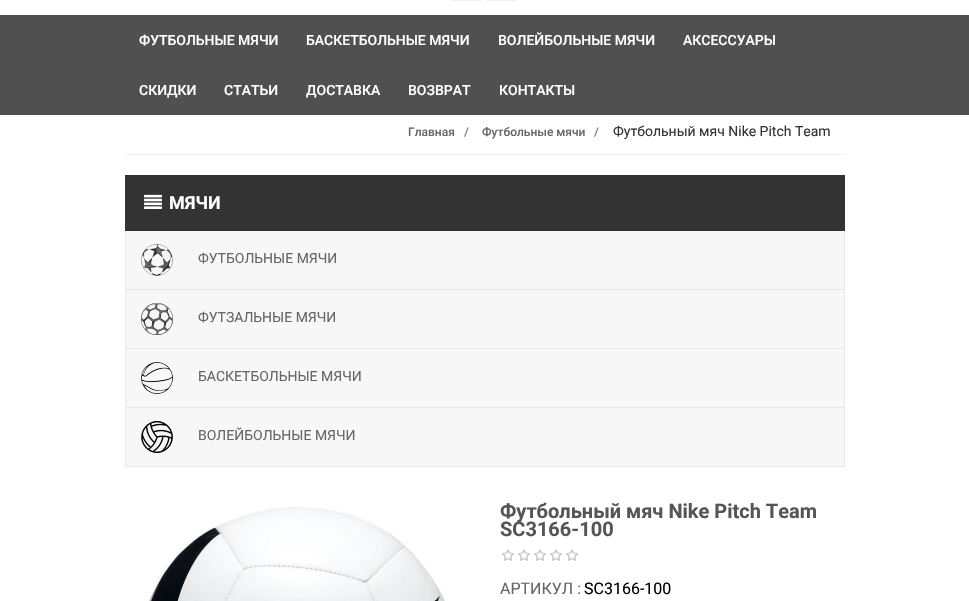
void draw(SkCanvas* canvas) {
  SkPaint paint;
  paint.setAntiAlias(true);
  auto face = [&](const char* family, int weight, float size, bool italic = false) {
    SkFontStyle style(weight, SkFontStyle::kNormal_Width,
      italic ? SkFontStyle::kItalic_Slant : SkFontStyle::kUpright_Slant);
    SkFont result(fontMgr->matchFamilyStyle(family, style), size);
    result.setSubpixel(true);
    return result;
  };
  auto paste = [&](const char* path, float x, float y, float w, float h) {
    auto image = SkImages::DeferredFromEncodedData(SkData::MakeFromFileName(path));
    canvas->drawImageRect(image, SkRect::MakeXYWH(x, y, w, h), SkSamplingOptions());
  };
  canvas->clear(0xffffffff);
  paste("img/1.png", 452, 0, 30, 1);
  paste("img/1.png", 487, 0, 30, 1);
  {
    const struct { float x, y, w, h; SkColor color; } items[] = {
      {0, 15, 969, 100, 0xff505050},
      {125, 154, 720, 1, 0xfff2f2f2},
      {125, 175, 720, 56, 0xff333333},
    };
    for (auto [x, y, w, h, color] : items) {
      paint.setColor(color);
      canvas->drawRect(SkRect::MakeXYWH(x, y, w, h), paint);
    }
  }
  paste("img/2.png", 144, 194, 18, 15);
  {
    const struct { float x, y, w, h; SkColor color; } items[] = {
      {126, 231, 718, 58, 0xfff7f7f7},
      {844, 231, 1, 236, 0xffebebeb},
      {125, 289, 720, 1, 0xffe8e8e8},
      {125, 231, 1, 59, 0xffebebeb},
    };
    for (auto [x, y, w, h, color] : items) {
      paint.setColor(color);
      canvas->drawRect(SkRect::MakeXYWH(x, y, w, h), paint);
    }
  }
  paste("img/3.png", 141, 244, 32, 32);
  {
    const struct { float x, y, w, h; SkColor color; } items[] = {
      {126, 290, 718, 58, 0xfff7f7f7},
      {125, 348, 720, 1, 0xffe8e8e8},
      {125, 290, 1, 59, 0xffebebeb},
    };
    for (auto [x, y, w, h, color] : items) {
      paint.setColor(color);
      canvas->drawRect(SkRect::MakeXYWH(x, y, w, h), paint);
    }
  }
  paste("img/4.png", 141, 303, 32, 32);
  {
    const struct { float x, y, w, h; SkColor color; } items[] = {
      {126, 349, 718, 58, 0xfff7f7f7},
      {125, 407, 720, 1, 0xffe8e8e8},
      {125, 349, 1, 59, 0xffebebeb},
    };
    for (auto [x, y, w, h, color] : items) {
      paint.setColor(color);
      canvas->drawRect(SkRect::MakeXYWH(x, y, w, h), paint);
    }
  }
  paste("img/5.png", 141, 362, 32, 32);
  {
    const struct { float x, y, w, h; SkColor color; } items[] = {
      {126, 408, 718, 58, 0xfff7f7f7},
      {125, 466, 720, 1, 0xffe8e8e8},
      {125, 408, 1, 59, 0xffebebeb},
    };
    for (auto [x, y, w, h, color] : items) {
      paint.setColor(color);
      canvas->drawRect(SkRect::MakeXYWH(x, y, w, h), paint);
    }
  }
  paste("img/6.png", 141, 421, 32, 32);
  paste("img/7.png", 149, 507, 296, 94);
  paste("img/8.png", 501, 549, 78, 12);
  auto f0 = face("Roboto", 500, 14);
  paint.setColor(0xffffffff);
  {
    const struct { const char* s; float x, y; } items[] = {
      {"ФУТБОЛЬНЫЕ МЯЧИ", 139, 45},
      {"БАСКЕТБОЛЬНЫЕ МЯЧИ", 306, 45},
      {"ВОЛЕЙБОЛЬНЫЕ МЯЧИ", 498, 45},
      {"АКСЕССУАРЫ", 683, 45},
      {"СКИДКИ", 139, 95},
      {"СТАТЬИ", 224, 95},
      {"ДОСТАВКА", 306, 95},
      {"ВОЗВРАТ", 408, 95},
      {"КОНТАКТЫ", 499, 95},
    };
    for (auto [s, x, y] : items) {
      canvas->drawString(s, x, y, f0, paint);
    }
  }
  auto f1 = face("Roboto", 500, 12);
  paint.setColor(0xff666666);
  canvas->drawString("Главная", 408, 136, f1, paint);
  auto f2 = face("Roboto", 400, 12);
  canvas->drawString("/", 464, 136, f2, paint);
  canvas->drawString("Футбольные мячи", 482, 136, f1, paint);
  canvas->drawString("/", 594, 136, f2, paint);
  auto f3 = face("Roboto", 400, 14);
  paint.setColor(0xff333333);
  canvas->drawString("Футбольный мяч Nike Pitch Team", 613, 136, f3, paint);
  auto f4 = face("Roboto", 700, 18);
  paint.setColor(0xffffffff);
  canvas->drawString("МЯЧИ", 169, 209, f4, paint);
  paint.setColor(0xff666666);
  {
    const struct { const char* s; float x, y; } items[] = {
      {"ФУТБОЛЬНЫЕ МЯЧИ", 198, 263},
      {"ФУТЗАЛЬНЫЕ МЯЧИ", 198, 322},
      {"БАСКЕТБОЛЬНЫЕ МЯЧИ", 198, 381},
      {"ВОЛЕЙБОЛЬНЫЕ МЯЧИ", 198, 440},
    };
    for (auto [s, x, y] : items) {
      canvas->drawString(s, x, y, f3, paint);
    }
  }
  auto f5 = face("Roboto", 700, 20);
  paint.setColor(0xff555555);
  canvas->drawString("Футбольный мяч Nike Pitch Team", 500, 518, f5, paint);
  canvas->drawString("SC3166-100", 500, 536, f5, paint);
  auto f6 = face("Roboto", 400, 16);
  paint.setColor(0xff666666);
  canvas->drawString("АРТИКУЛ :", 500, 594, f6, paint);
  paint.setColor(0xff000000);
  canvas->drawString("SC3166-100", 584, 594, f6, paint);
}
